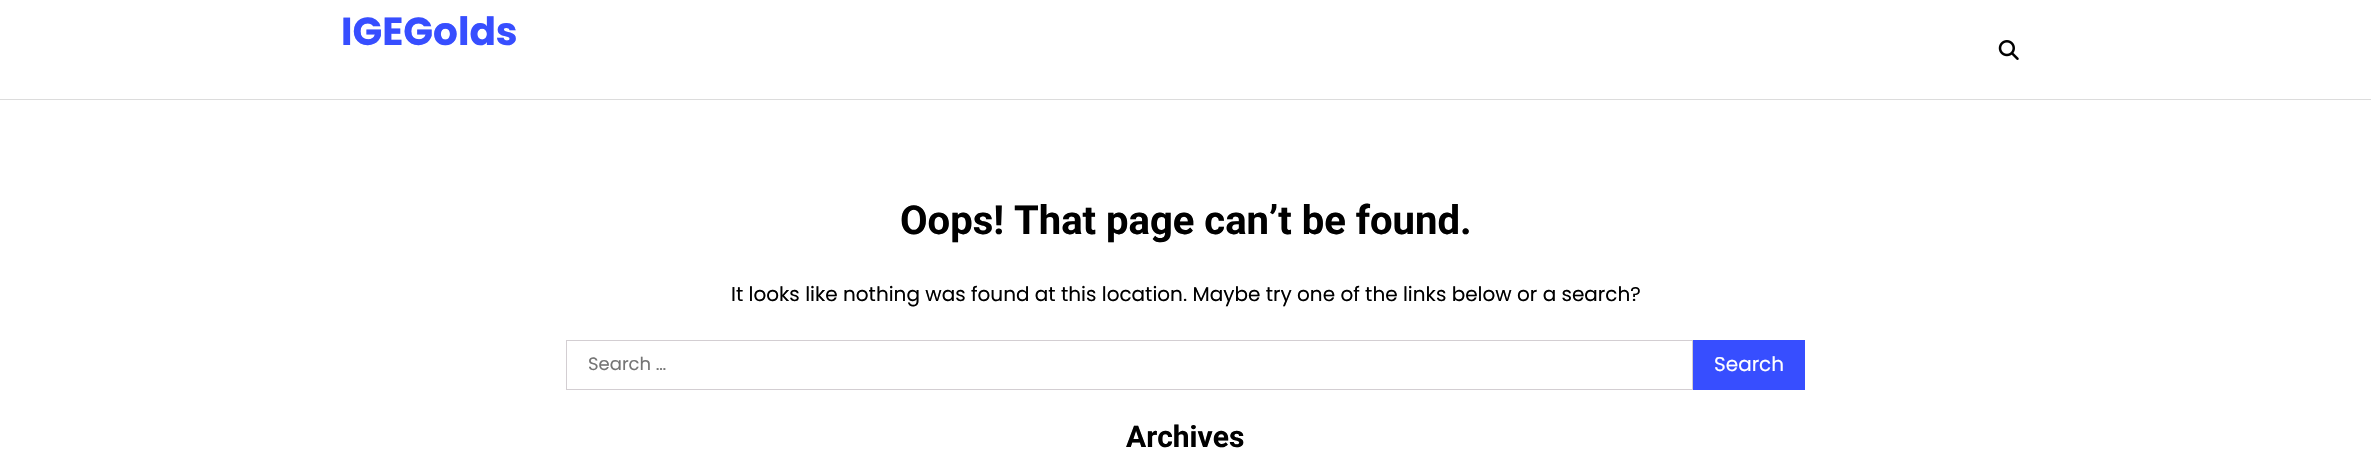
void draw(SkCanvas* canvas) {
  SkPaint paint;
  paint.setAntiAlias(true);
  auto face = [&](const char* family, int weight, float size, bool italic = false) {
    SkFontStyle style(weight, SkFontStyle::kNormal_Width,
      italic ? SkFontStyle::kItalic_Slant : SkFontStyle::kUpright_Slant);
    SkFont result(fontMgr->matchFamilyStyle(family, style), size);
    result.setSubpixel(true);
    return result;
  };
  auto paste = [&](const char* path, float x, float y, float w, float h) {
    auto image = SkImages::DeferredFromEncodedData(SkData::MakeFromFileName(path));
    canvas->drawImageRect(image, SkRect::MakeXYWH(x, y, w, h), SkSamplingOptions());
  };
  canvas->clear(0xffffffff);
  paint.setColor(0xffdcdcdc);
  canvas->drawRect(SkRect::MakeXYWH(0, 99, 2371, 1), paint);
  paste("img/1.png", 1998, 40, 21, 20);
  paint.setStroke(true);
  paint.setStrokeWidth(1);
  paint.setColor(0xffd3ced2);
  canvas->drawRect(SkRect::MakeXYWH(566.5f, 340.5f, 1126, 49), paint);
  paint.setStroke(false);
  paint.setColor(0xff374eff);
  canvas->drawRect(SkRect::MakeXYWH(1693, 340, 112, 50), paint);
  auto f0 = face("Poppins", 700, 39);
  canvas->drawString("IGEGolds", 341, 45, f0, paint);
  auto f1 = face("Roboto", 700, 40);
  paint.setColor(0xff000000);
  canvas->drawString("Oops! That page can’t be found.", 900, 234, f1, paint);
  auto f2 = face("Poppins", 400, 20);
  canvas->drawString("It looks like nothing was found at this location. Maybe try one of the links below or a search?", 731, 301, f2, paint);
  auto f3 = face("Poppins", 400, 18);
  paint.setColor(0xff757575);
  canvas->drawString("Search …", 588, 370, f3, paint);
  paint.setColor(0xffffffff);
  canvas->drawString("Search", 1714, 371, f2, paint);
  auto f4 = face("Roboto", 700, 30);
  paint.setColor(0xff000000);
  canvas->drawString("Archives", 1126, 447, f4, paint);
}
